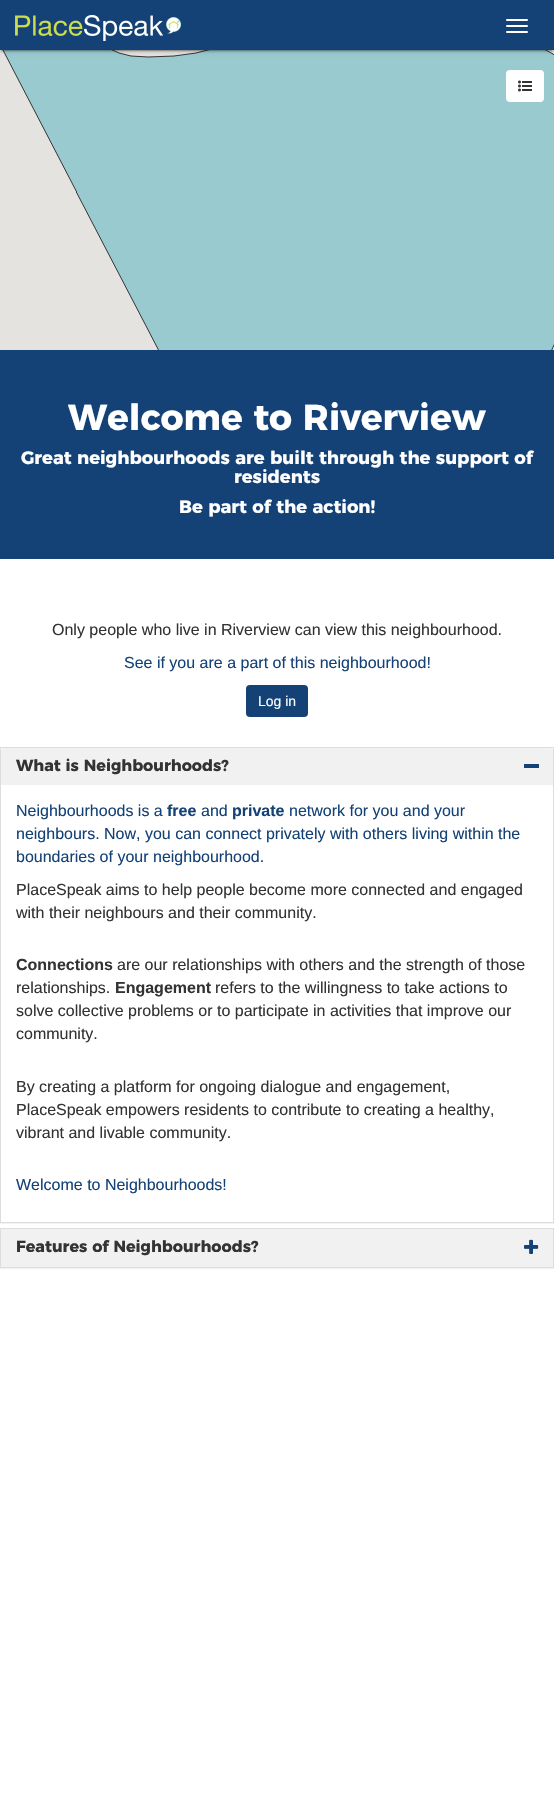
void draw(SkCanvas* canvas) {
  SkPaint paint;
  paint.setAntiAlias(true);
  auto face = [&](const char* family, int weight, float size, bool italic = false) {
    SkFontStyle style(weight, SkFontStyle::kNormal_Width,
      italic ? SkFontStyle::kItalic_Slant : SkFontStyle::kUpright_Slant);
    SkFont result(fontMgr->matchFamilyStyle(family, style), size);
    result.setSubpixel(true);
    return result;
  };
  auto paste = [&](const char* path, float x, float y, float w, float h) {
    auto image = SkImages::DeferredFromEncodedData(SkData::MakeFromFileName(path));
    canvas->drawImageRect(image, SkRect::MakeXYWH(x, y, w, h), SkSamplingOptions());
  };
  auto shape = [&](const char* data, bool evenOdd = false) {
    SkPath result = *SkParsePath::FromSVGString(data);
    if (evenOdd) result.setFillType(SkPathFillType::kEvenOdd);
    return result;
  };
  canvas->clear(0xffffffff);
  paint.setColor(0xffe5e3df);
  canvas->drawRect(SkRect::MakeXYWH(0, 50, 554, 300), paint);
  paste("img/2.png", 2, 50, 197, 142);
  paste("img/3.png", 199, 50, 256, 142);
  paste("img/4.png", 455, 50, 99, 142);
  paint.setColor(0x1f000000);
  paint.setMaskFilter(SkMaskFilter::MakeBlur(kNormal_SkBlurStyle, 2.5f));
  canvas->drawRect(SkRect::MakeXYWH(0, 1, 554, 50), paint);
  paint.setMaskFilter(nullptr);
  paint.setColor(0x33000000);
  paint.setMaskFilter(SkMaskFilter::MakeBlur(kNormal_SkBlurStyle, 0.5f));
  canvas->drawRect(SkRect::MakeXYWH(2, 5, 550, 46), paint);
  paint.setMaskFilter(nullptr);
  paint.setColor(0x24000000);
  paint.setMaskFilter(SkMaskFilter::MakeBlur(kNormal_SkBlurStyle, 1));
  canvas->drawRect(SkRect::MakeXYWH(0, 2, 554, 50), paint);
  paint.setMaskFilter(nullptr);
  paint.setColor(0xff144276);
  canvas->drawRect(SkRect::MakeXYWH(0, 0, 554, 50), paint);
  paste("img/1.png", 15, 15, 166, 26);
  paint.setColor(0xffffffff);
  canvas->drawRoundRect(SkRect::MakeXYWH(506, 19, 22, 2), 1, 1, paint);
  canvas->drawRoundRect(SkRect::MakeXYWH(506, 25, 22, 2), 1, 1, paint);
  canvas->drawRoundRect(SkRect::MakeXYWH(506, 31, 22, 2), 1, 1, paint);
  paste("img/5.png", 76, 192, 123, 158);
  paint.setColor(0xff99cad0);
  canvas->drawRect(SkRect::MakeXYWH(199, 192, 256, 158), paint);
  paste("img/6.png", 455, 192, 99, 158);
  paint.setColor(0xffffffff);
  canvas->drawRoundRect(SkRect::MakeXYWH(506, 70, 38, 32), 4, 4, paint);
  paste("img/7.png", 518, 80, 14, 12);
  paint.setColor(0xff144276);
  canvas->drawRect(SkRect::MakeXYWH(0, 350, 554, 209), paint);
  canvas->drawRoundRect(SkRect::MakeXYWH(246, 685, 62, 32), 4, 4, paint);
  canvas->save();
  canvas->clipRect(SkRect::MakeXYWH(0, 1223, 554, 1));
  paint.setColor(0x0d000000);
  paint.setMaskFilter(SkMaskFilter::MakeBlur(kNormal_SkBlurStyle, 0.5f));
  canvas->drawRect(SkRect::MakeXYWH(0, 748, 554, 476), paint);
  paint.setMaskFilter(nullptr);
  canvas->restore();
  paint.setStroke(true);
  paint.setStrokeWidth(1);
  paint.setColor(0xffdddddd);
  canvas->drawRect(SkRect::MakeXYWH(0.5f, 747.5f, 553, 475), paint);
  paint.setStroke(false);
  paint.setColor(0xfff1f1f1);
  canvas->drawPath(shape("M4 748H550C551.5 748 553 749.5 553 751V785H1V751C1 749.5 2.5 748 4 748Z"), paint);
  paint.setColor(0xff144276);
  canvas->drawRect(SkRect::MakeXYWH(524, 764, 15, 4), paint);
  paint.setColor(0x0d000000);
  paint.setMaskFilter(SkMaskFilter::MakeBlur(kNormal_SkBlurStyle, 0.5f));
  canvas->drawRect(SkRect::MakeXYWH(0, 1229, 554, 40), paint);
  paint.setMaskFilter(nullptr);
  paint.setStroke(true);
  paint.setColor(0xffdddddd);
  canvas->drawRect(SkRect::MakeXYWH(0.5f, 1228.5f, 553, 39), paint);
  paint.setStroke(false);
  paint.setColor(0xfff1f1f1);
  canvas->drawPath(shape("M4 1229H550C551.5 1229 553 1230.5 553 1232V1267H1V1232C1 1230.5 2.5 1229 4 1229Z"), paint);
  paste("img/8.png", 524, 1239, 15, 15);
  auto f0 = face("Montserrat", 700, 36);
  paint.setColor(0xffffffff);
  canvas->drawString("Welcome to Riverview", 68, 430, f0, paint);
  auto f1 = face("Montserrat", 700, 18);
  {
    const struct { const char* s; float x, y; } items[] = {
      {"Great neighbourhoods are built through the support of", 21, 464},
      {"residents", 234, 483},
      {"Be part of the action!", 179, 513},
    };
    for (auto [s, x, y] : items) {
      canvas->drawString(s, x, y, f1, paint);
    }
  }
  auto f2 = face("Liberation Sans", 400, 16);
  paint.setColor(0xff333333);
  canvas->drawString("Only people who live in Riverview can view this neighbourhood.", 52, 635, f2, paint);
  paint.setColor(0xff144276);
  canvas->drawString("See if you are a part of this neighbourhood!", 124, 668, f2, paint);
  auto f3 = face("Liberation Sans", 400, 14);
  paint.setColor(0xffffffff);
  canvas->drawString("Log in", 258, 706, f3, paint);
  auto f4 = face("Montserrat", 700, 16);
  paint.setColor(0xff333333);
  canvas->drawString("What is Neighbourhoods?", 16, 771, f4, paint);
  paint.setColor(0xff144276);
  canvas->drawString("Neighbourhoods is a", 16, 816, f2, paint);
  auto f5 = face("Liberation Sans", 700, 16);
  canvas->drawString("free", 167, 816, f5, paint);
  canvas->drawString("and", 201, 816, f2, paint);
  canvas->drawString("private", 232, 816, f5, paint);
  {
    const struct { const char* s; float x, y; } items[] = {
      {"network for you and your", 289, 816},
      {"neighbours. Now, you can connect privately with others living within the", 16, 839},
      {"boundaries of your neighbourhood.", 16, 862},
    };
    for (auto [s, x, y] : items) {
      canvas->drawString(s, x, y, f2, paint);
    }
  }
  paint.setColor(0xff333333);
  canvas->drawString("PlaceSpeak aims to help people become more connected and engaged", 16, 895, f2, paint);
  canvas->drawString("with their neighbours and their community.", 16, 918, f2, paint);
  canvas->drawString("Connections", 16, 970, f5, paint);
  canvas->drawString("are our relationships with others and the strength of those", 117, 970, f2, paint);
  canvas->drawString("relationships.", 16, 993, f2, paint);
  canvas->drawString("Engagement", 115, 993, f5, paint);
  {
    const struct { const char* s; float x, y; } items[] = {
      {"refers to the willingness to take actions to", 215, 993},
      {"solve collective problems or to participate in activities that improve our", 16, 1016},
      {"community.", 16, 1039},
      {"By creating a platform for ongoing dialogue and engagement,", 16, 1092},
      {"PlaceSpeak empowers residents to contribute to creating a healthy,", 16, 1115},
      {"vibrant and livable community.", 16, 1138},
    };
    for (auto [s, x, y] : items) {
      canvas->drawString(s, x, y, f2, paint);
    }
  }
  paint.setColor(0xff144276);
  canvas->drawString("Welcome to Neighbourhoods!", 16, 1190, f2, paint);
  paint.setColor(0xff333333);
  canvas->drawString("Features of Neighbourhoods?", 16, 1252, f4, paint);
}
